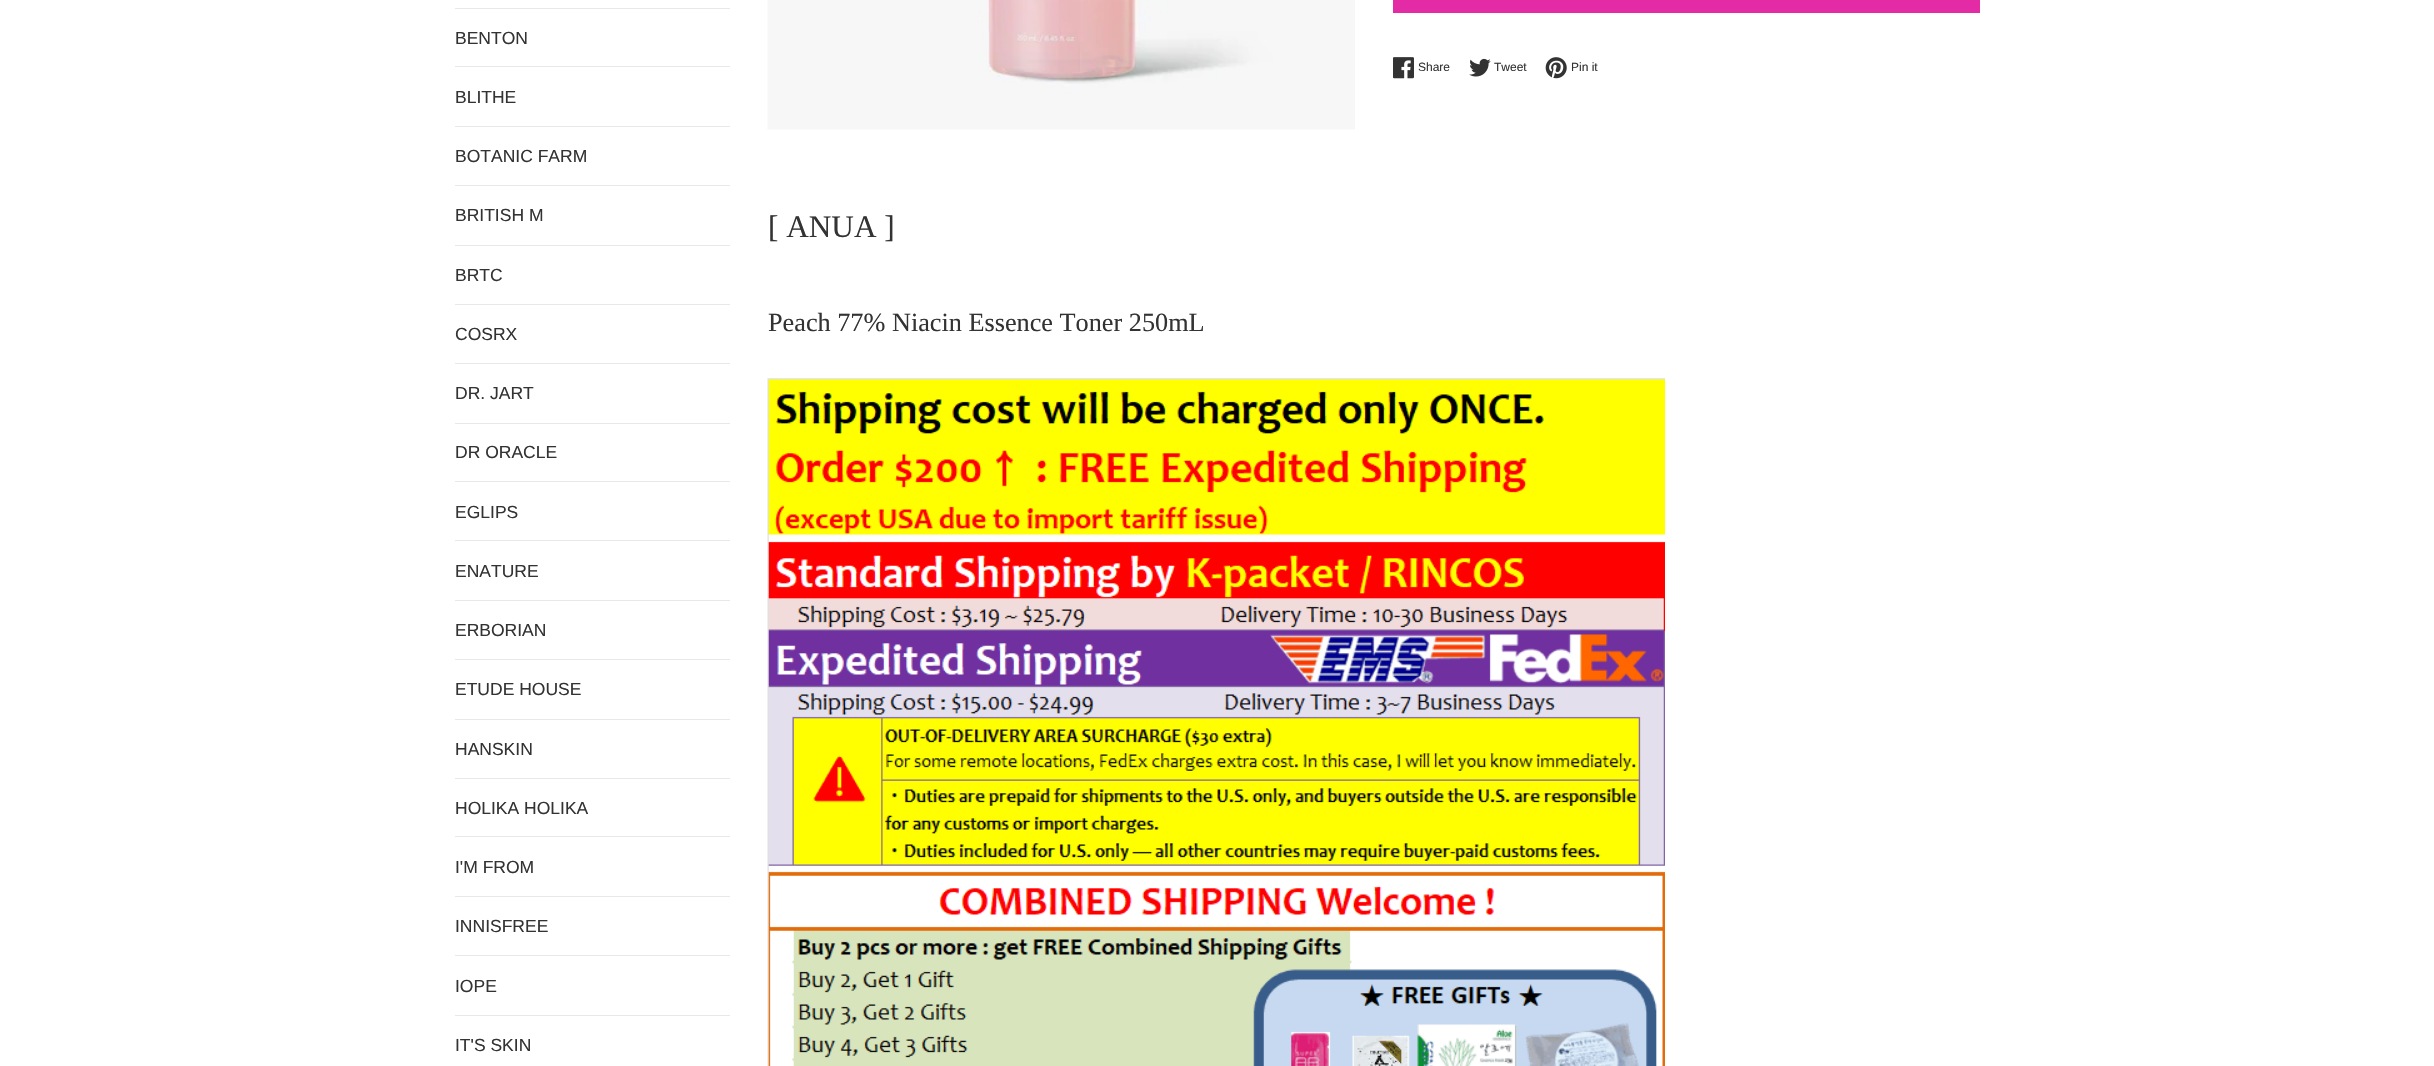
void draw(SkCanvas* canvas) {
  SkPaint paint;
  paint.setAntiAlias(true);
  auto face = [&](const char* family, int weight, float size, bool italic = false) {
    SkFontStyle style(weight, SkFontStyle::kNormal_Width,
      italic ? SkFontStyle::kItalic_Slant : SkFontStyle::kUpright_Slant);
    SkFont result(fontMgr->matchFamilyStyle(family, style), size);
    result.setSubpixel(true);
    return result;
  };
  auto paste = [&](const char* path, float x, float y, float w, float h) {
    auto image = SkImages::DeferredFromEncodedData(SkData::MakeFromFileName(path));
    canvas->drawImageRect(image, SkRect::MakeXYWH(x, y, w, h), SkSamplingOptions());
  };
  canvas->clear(0xffffffff);
  {
    const struct { float x, y, w, h; SkColor color; } items[] = {
      {455, 8, 275, 1, 0xffe8e8e8},
      {455, 66, 275, 1, 0xffe8e8e8},
      {455, 126, 275, 1, 0xffe8e8e8},
      {455, 185, 275, 1, 0xffe8e8e8},
      {455, 245, 275, 1, 0xffe8e8e8},
      {455, 304, 275, 1, 0xffe8e8e8},
      {455, 363, 275, 1, 0xffe8e8e8},
      {455, 423, 275, 1, 0xffe8e8e8},
      {455, 481, 275, 1, 0xffe8e8e8},
      {455, 540, 275, 1, 0xffe8e8e8},
      {455, 600, 275, 1, 0xffe8e8e8},
      {455, 659, 275, 1, 0xffe8e8e8},
      {455, 719, 275, 1, 0xffe8e8e8},
      {455, 778, 275, 1, 0xffe8e8e8},
      {455, 836, 275, 1, 0xffe8e8e8},
      {455, 896, 275, 1, 0xffe8e8e8},
      {455, 955, 275, 1, 0xffe8e8e8},
      {455, 1015, 275, 1, 0xffe8e8e8},
    };
    for (auto [x, y, w, h, color] : items) {
      paint.setColor(color);
      canvas->drawRect(SkRect::MakeXYWH(x, y, w, h), paint);
    }
  }
  paste("img/1.png", 767, 0, 588, 130);
  paint.setColor(0xffe32ba5);
  canvas->drawRect(SkRect::MakeXYWH(1393, 0, 587, 13), paint);
  paste("img/2.png", 1393, 57, 21, 22);
  paste("img/3.png", 1469, 58, 22, 19);
  paste("img/4.png", 1545, 57, 22, 22);
  paste("img/5.png", 767, 378, 898, 688);
  auto f0 = face("Liberation Sans", 400, 17.5f);
  paint.setColor(0xff333333);
  {
    const struct { const char* s; float x, y; } items[] = {
      {"BENTON", 455, 44},
      {"BLITHE", 455, 103},
      {"BOTANIC FARM", 455, 162},
      {"BRITISH M", 455, 221},
      {"BRTC", 455, 281},
      {"COSRX", 455, 340},
      {"DR. JART", 455, 399},
      {"DR ORACLE", 455, 458},
      {"EGLIPS", 455, 518},
      {"ENATURE", 455, 577},
      {"ERBORIAN", 455, 636},
      {"ETUDE HOUSE", 455, 695},
      {"HANSKIN", 455, 755},
      {"HOLIKA HOLIKA", 455, 814},
      {"I'M FROM", 455, 873},
      {"INNISFREE", 455, 932},
      {"IOPE", 455, 992},
      {"IT'S SKIN", 455, 1051},
    };
    for (auto [s, x, y] : items) {
      canvas->drawString(s, x, y, f0, paint);
    }
  }
  auto f1 = face("Liberation Sans", 400, 12);
  {
    const struct { const char* s; float x, y; } items[] = {
      {"Share", 1418, 71},
      {"Tweet", 1494, 71},
      {"Pin it", 1571, 71},
    };
    for (auto [s, x, y] : items) {
      canvas->drawString(s, x, y, f1, paint);
    }
  }
  auto f2 = face("Liberation Serif", 400, 31.25f);
  canvas->drawString("[ ANUA ]", 768, 237, f2, paint);
  auto f3 = face("Liberation Serif", 400, 26.25f);
  canvas->drawString("Peach 77% Niacin Essence Toner 250mL", 768, 331, f3, paint);
}
